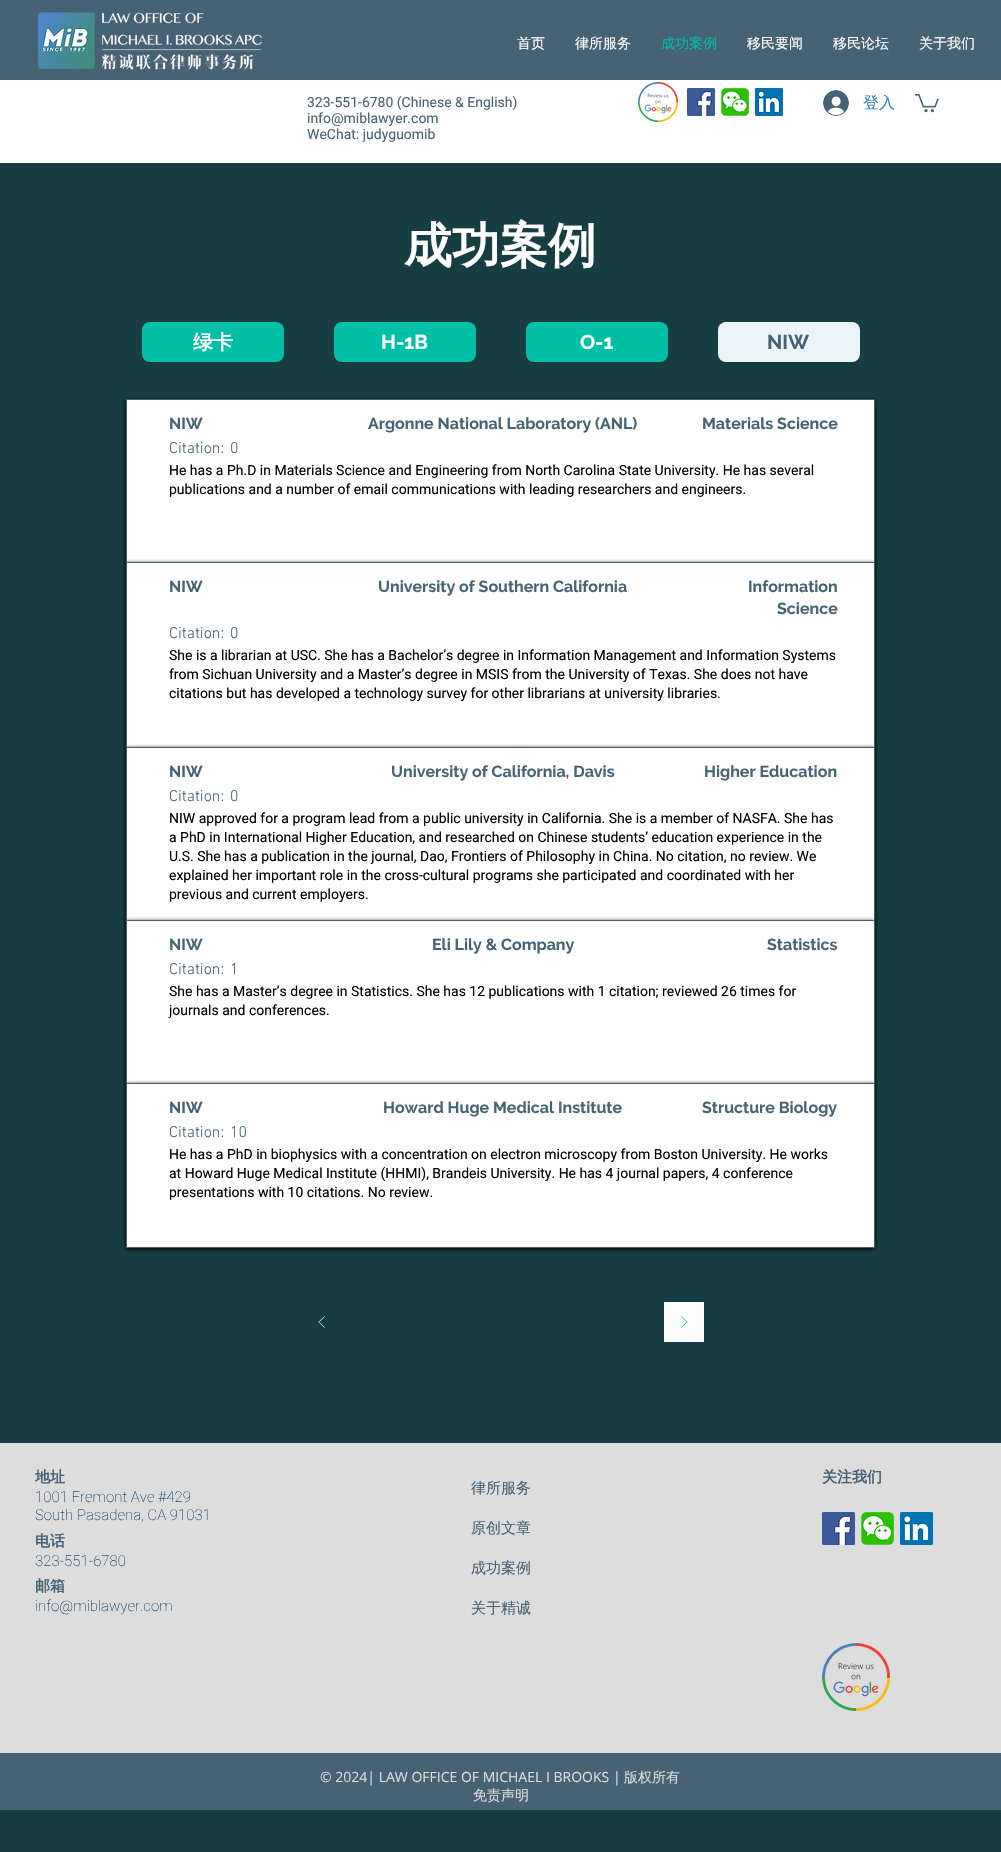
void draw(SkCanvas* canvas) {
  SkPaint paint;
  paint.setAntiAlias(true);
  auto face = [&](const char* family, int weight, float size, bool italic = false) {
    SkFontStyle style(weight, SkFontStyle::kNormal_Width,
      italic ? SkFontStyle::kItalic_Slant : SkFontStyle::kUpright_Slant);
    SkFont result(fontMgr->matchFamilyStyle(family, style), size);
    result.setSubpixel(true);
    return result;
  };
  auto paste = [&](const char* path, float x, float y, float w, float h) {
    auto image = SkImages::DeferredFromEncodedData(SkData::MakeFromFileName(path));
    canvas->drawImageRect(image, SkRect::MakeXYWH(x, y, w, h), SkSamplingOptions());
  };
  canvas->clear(0xff163d41);
  paint.setColor(0xff466275);
  canvas->drawRect(SkRect::MakeXYWH(0, 0, 1001, 80), paint);
  paste("img/1.png", 37, 12, 225, 58);
  paint.setColor(0xffffffff);
  canvas->drawRect(SkRect::MakeXYWH(0, 80, 1001, 83), paint);
  paste("img/2.png", 638, 82, 40, 40);
  paste("img/3.png", 687, 88, 28, 28);
  paste("img/4.png", 721, 88, 28, 28);
  paste("img/5.png", 755, 88, 28, 28);
  paste("img/6.png", 823, 90, 26, 26);
  paste("img/7.png", 915, 94, 24, 19);
  paint.setColor(0xff00bfa7);
  canvas->drawRoundRect(SkRect::MakeXYWH(142, 322, 142, 40), 8, 8, paint);
  canvas->drawRoundRect(SkRect::MakeXYWH(334, 322, 142, 40), 8, 8, paint);
  canvas->drawRoundRect(SkRect::MakeXYWH(526, 322, 142, 40), 8, 8, paint);
  paint.setColor(0xffeaf4f6);
  canvas->drawRoundRect(SkRect::MakeXYWH(718, 322, 142, 40), 8, 8, paint);
  paint.setColor(0xff000000);
  paint.setMaskFilter(SkMaskFilter::MakeBlur(kNormal_SkBlurStyle, 2));
  canvas->drawRect(SkRect::MakeXYWH(126, 400, 749, 165), paint);
  paint.setMaskFilter(nullptr);
  paint.setStroke(true);
  paint.setStrokeWidth(1);
  paint.setColor(0xff466275);
  canvas->drawRect(SkRect::MakeXYWH(126.5f, 399.5f, 748, 164), paint);
  paint.setStroke(false);
  paint.setColor(0xffffffff);
  canvas->drawRect(SkRect::MakeXYWH(127, 400, 747, 162), paint);
  paint.setColor(0xff000000);
  paint.setMaskFilter(SkMaskFilter::MakeBlur(kNormal_SkBlurStyle, 2));
  canvas->drawRect(SkRect::MakeXYWH(126, 563, 749, 187), paint);
  paint.setMaskFilter(nullptr);
  paint.setStroke(true);
  paint.setColor(0xff466275);
  canvas->drawRect(SkRect::MakeXYWH(126.5f, 562.5f, 748, 186), paint);
  paint.setStroke(false);
  paint.setColor(0xffffffff);
  canvas->drawRect(SkRect::MakeXYWH(127, 563, 747, 184), paint);
  paint.setColor(0xff000000);
  paint.setMaskFilter(SkMaskFilter::MakeBlur(kNormal_SkBlurStyle, 2));
  canvas->drawRect(SkRect::MakeXYWH(126, 748, 749, 175), paint);
  paint.setMaskFilter(nullptr);
  paint.setStroke(true);
  paint.setColor(0xff466275);
  canvas->drawRect(SkRect::MakeXYWH(126.5f, 747.5f, 748, 174), paint);
  paint.setStroke(false);
  paint.setColor(0xffffffff);
  canvas->drawRect(SkRect::MakeXYWH(127, 748, 747, 172), paint);
  paint.setColor(0xff000000);
  paint.setMaskFilter(SkMaskFilter::MakeBlur(kNormal_SkBlurStyle, 2));
  canvas->drawRect(SkRect::MakeXYWH(126, 921, 749, 165), paint);
  paint.setMaskFilter(nullptr);
  paint.setStroke(true);
  paint.setColor(0xff466275);
  canvas->drawRect(SkRect::MakeXYWH(126.5f, 920.5f, 748, 164), paint);
  paint.setStroke(false);
  paint.setColor(0xffffffff);
  canvas->drawRect(SkRect::MakeXYWH(127, 921, 747, 162), paint);
  paint.setColor(0xff000000);
  paint.setMaskFilter(SkMaskFilter::MakeBlur(kNormal_SkBlurStyle, 2));
  canvas->drawRect(SkRect::MakeXYWH(126, 1084, 749, 165), paint);
  paint.setMaskFilter(nullptr);
  paint.setStroke(true);
  paint.setColor(0xff466275);
  canvas->drawRect(SkRect::MakeXYWH(126.5f, 1083.5f, 748, 164), paint);
  paint.setStroke(false);
  paint.setColor(0xffffffff);
  canvas->drawRect(SkRect::MakeXYWH(127, 1084, 747, 163), paint);
  paste("img/8.png", 318, 1316, 7, 12);
  paint.setColor(0xfffdfdfd);
  canvas->drawRect(SkRect::MakeXYWH(664, 1302, 40, 40), paint);
  paste("img/9.png", 681, 1316, 7, 12);
  paint.setColor(0xffdddddd);
  canvas->drawRect(SkRect::MakeXYWH(0, 1443, 1001, 310), paint);
  paste("img/10.png", 822, 1512, 33, 33);
  paste("img/11.png", 861, 1512, 33, 33);
  paste("img/12.png", 900, 1512, 33, 33);
  paste("img/13.png", 822, 1643, 68, 68);
  paint.setColor(0xff466275);
  canvas->drawRect(SkRect::MakeXYWH(0, 1753, 1001, 57), paint);
  auto f0 = face("WenQuanYi Zen Hei", 500, 14);
  paint.setColor(0xffffffff);
  canvas->drawString("首页", 517, 48, f0, paint);
  canvas->drawString("律所服务", 575, 48, f0, paint);
  paint.setColor(0xff00bfa7);
  canvas->drawString("成功案例", 661, 48, f0, paint);
  paint.setColor(0xffffffff);
  {
    const struct { const char* s; float x, y; } items[] = {
      {"移民要闻", 747, 48},
      {"移民论坛", 833, 48},
      {"关于我们", 919, 48},
    };
    for (auto [s, x, y] : items) {
      canvas->drawString(s, x, y, f0, paint);
    }
  }
  auto f1 = face("Roboto", 400, 14);
  paint.setColor(0xff466275);
  {
    const struct { const char* s; float x, y; } items[] = {
      {"323-551-6780 (Chinese & English)", 307, 107},
      {"info@miblawyer.com", 307, 123},
      {"WeChat: judyguomib", 307, 139},
    };
    for (auto [s, x, y] : items) {
      canvas->drawString(s, x, y, f1, paint);
    }
  }
  auto f2 = face("WenQuanYi Zen Hei", 500, 16);
  paint.setColor(0xff377dbd);
  canvas->drawString("登入", 863, 108, f2, paint);
  auto f3 = face("WenQuanYi Zen Hei", 700, 48);
  paint.setColor(0xffffffff);
  canvas->drawString("成功案例", 404, 262, f3, paint);
  auto f4 = face("WenQuanYi Zen Hei", 700, 20);
  canvas->drawString("绿卡", 193, 349, f4, paint);
  auto f5 = face("Raleway", 700, 20);
  canvas->drawString("H-1B", 381, 349, f5, paint);
  canvas->drawString("O-1", 580, 349, f5, paint);
  paint.setColor(0xff466275);
  canvas->drawString("NIW", 767, 349, f5, paint);
  auto f6 = face("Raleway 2", 700, 16);
  {
    const struct { const char* s; float x, y; } items[] = {
      {"NIW", 169, 429},
      {"Argonne National Laboratory (ANL)", 368, 429},
      {"Materials Science", 702, 429},
    };
    for (auto [s, x, y] : items) {
      canvas->drawString(s, x, y, f6, paint);
    }
  }
  auto f7 = face("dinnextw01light", 300, 16);
  canvas->drawString("Citation:", 169, 453, f7, paint);
  canvas->drawString("0", 230, 453, f7, paint);
  paint.setColor(0xff000000);
  canvas->drawString("He has a Ph.D in Materials Science and Engineering from North Carolina State University. He has several", 169, 475, f1, paint);
  canvas->drawString("publications and a number of email communications with leading researchers and engineers.", 169, 494, f1, paint);
  paint.setColor(0xff466275);
  {
    const struct { const char* s; float x, y; } items[] = {
      {"NIW", 169, 592},
      {"University of Southern California", 378, 592},
      {"Information", 748, 592},
      {"Science", 777, 614},
    };
    for (auto [s, x, y] : items) {
      canvas->drawString(s, x, y, f6, paint);
    }
  }
  canvas->drawString("Citation:", 169, 638, f7, paint);
  canvas->drawString("0", 230, 638, f7, paint);
  paint.setColor(0xff000000);
  {
    const struct { const char* s; float x, y; } items[] = {
      {"She is a librarian at USC. She has a Bachelor’s degree in Information Management and Information Systems", 169, 660},
      {"from Sichuan University and a Master’s degree in MSIS from the University of Texas. She does not have", 169, 679},
      {"citations but has developed a technology survey for other librarians at university libraries.", 169, 698},
    };
    for (auto [s, x, y] : items) {
      canvas->drawString(s, x, y, f1, paint);
    }
  }
  paint.setColor(0xff466275);
  {
    const struct { const char* s; float x, y; } items[] = {
      {"NIW", 169, 777},
      {"University of California, Davis", 391, 777},
      {"Higher Education", 704, 777},
    };
    for (auto [s, x, y] : items) {
      canvas->drawString(s, x, y, f6, paint);
    }
  }
  canvas->drawString("Citation:", 169, 801, f7, paint);
  canvas->drawString("0", 230, 801, f7, paint);
  paint.setColor(0xff000000);
  {
    const struct { const char* s; float x, y; } items[] = {
      {"NIW approved for a program lead from a public university in California. She is a member of NASFA. She has", 169, 823},
      {"a PhD in International Higher Education, and researched on Chinese students’ education experience in the", 169, 842},
      {"U.S. She has a publication in the journal, Dao, Frontiers of Philosophy in China. No citation, no review. We", 169, 861},
      {"explained her important role in the cross-cultural programs she participated and coordinated with her", 169, 880},
      {"previous and current employers.", 169, 899},
    };
    for (auto [s, x, y] : items) {
      canvas->drawString(s, x, y, f1, paint);
    }
  }
  paint.setColor(0xff466275);
  {
    const struct { const char* s; float x, y; } items[] = {
      {"NIW", 169, 950},
      {"Eli Lily & Company", 432, 950},
      {"Statistics", 767, 950},
    };
    for (auto [s, x, y] : items) {
      canvas->drawString(s, x, y, f6, paint);
    }
  }
  canvas->drawString("Citation:", 169, 974, f7, paint);
  canvas->drawString("1", 230, 974, f7, paint);
  paint.setColor(0xff000000);
  canvas->drawString("She has a Master’s degree in Statistics. She has 12 publications with 1 citation; reviewed 26 times for", 169, 996, f1, paint);
  canvas->drawString("journals and conferences.", 169, 1015, f1, paint);
  paint.setColor(0xff466275);
  {
    const struct { const char* s; float x, y; } items[] = {
      {"NIW", 169, 1113},
      {"Howard Huge Medical Institute", 383, 1113},
      {"Structure Biology", 702, 1113},
    };
    for (auto [s, x, y] : items) {
      canvas->drawString(s, x, y, f6, paint);
    }
  }
  canvas->drawString("Citation:", 169, 1137, f7, paint);
  canvas->drawString("10", 230, 1137, f7, paint);
  paint.setColor(0xff000000);
  {
    const struct { const char* s; float x, y; } items[] = {
      {"He has a PhD in biophysics with a concentration on electron microscopy from Boston University. He works", 169, 1159},
      {"at Howard Huge Medical Institute (HHMI), Brandeis University. He has 4 journal papers, 4 conference", 169, 1178},
      {"presentations with 10 citations. No review.", 169, 1197},
    };
    for (auto [s, x, y] : items) {
      canvas->drawString(s, x, y, f1, paint);
    }
  }
  auto f8 = face("WenQuanYi Zen Hei", 700, 15);
  paint.setColor(0xff466275);
  canvas->drawString("地址", 35, 1482, f8, paint);
  auto f9 = face("Roboto", 100, 15);
  paint.setColor(0xff00305b);
  canvas->drawString("1001 Fremont Ave #429", 35, 1502, f9, paint);
  canvas->drawString("South Pasadena, CA 91031", 35, 1520, f9, paint);
  paint.setColor(0xff466275);
  canvas->drawString("电话", 35, 1546, f8, paint);
  paint.setColor(0xff00305b);
  canvas->drawString("323-551-6780", 35, 1566, f9, paint);
  paint.setColor(0xff466275);
  canvas->drawString("邮箱", 35, 1591, f8, paint);
  paint.setColor(0xff00305b);
  canvas->drawString("info@miblawyer.com", 35, 1611, f9, paint);
  paint.setColor(0xff466275);
  canvas->drawString("关注我们", 822, 1482, f8, paint);
  auto f10 = face("WenQuanYi Zen Hei", 500, 15);
  {
    const struct { const char* s; float x, y; } items[] = {
      {"律所服务", 471, 1493},
      {"原创文章", 471, 1533},
      {"成功案例", 471, 1573},
      {"关于精诚", 471, 1613},
    };
    for (auto [s, x, y] : items) {
      canvas->drawString(s, x, y, f10, paint);
    }
  }
  auto f11 = face("Open Sans", 400, 14);
  paint.setColor(0xffdddddd);
  canvas->drawString("© 2024| LAW OFFICE OF MICHAEL I BROOKS |", 320, 1782, f11, paint);
  canvas->drawString("版权所有", 624, 1782, f0, paint);
  canvas->drawString("免责声明", 473, 1800, f0, paint);
}
